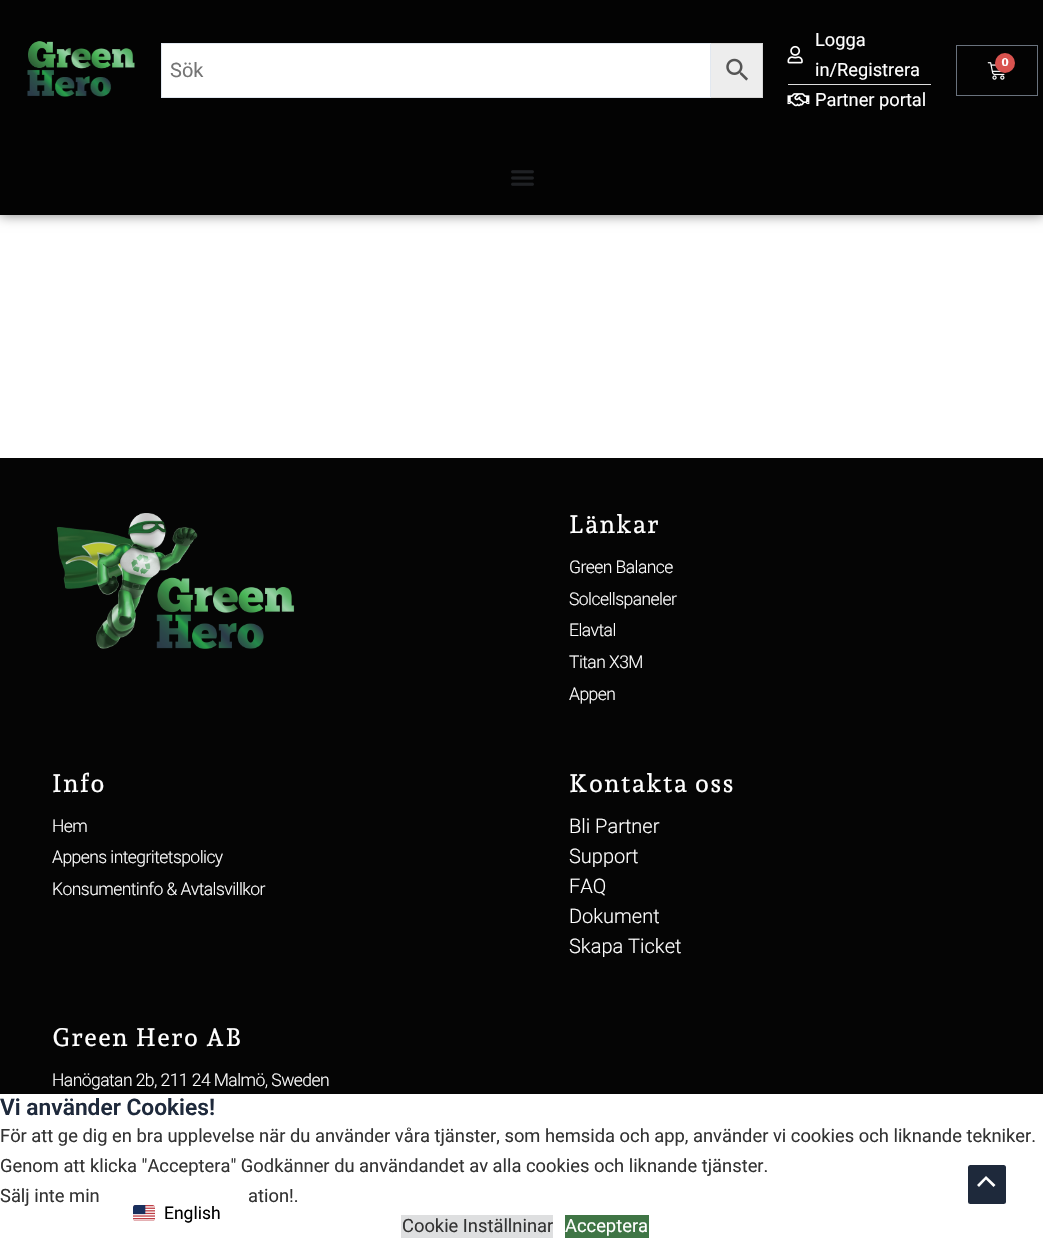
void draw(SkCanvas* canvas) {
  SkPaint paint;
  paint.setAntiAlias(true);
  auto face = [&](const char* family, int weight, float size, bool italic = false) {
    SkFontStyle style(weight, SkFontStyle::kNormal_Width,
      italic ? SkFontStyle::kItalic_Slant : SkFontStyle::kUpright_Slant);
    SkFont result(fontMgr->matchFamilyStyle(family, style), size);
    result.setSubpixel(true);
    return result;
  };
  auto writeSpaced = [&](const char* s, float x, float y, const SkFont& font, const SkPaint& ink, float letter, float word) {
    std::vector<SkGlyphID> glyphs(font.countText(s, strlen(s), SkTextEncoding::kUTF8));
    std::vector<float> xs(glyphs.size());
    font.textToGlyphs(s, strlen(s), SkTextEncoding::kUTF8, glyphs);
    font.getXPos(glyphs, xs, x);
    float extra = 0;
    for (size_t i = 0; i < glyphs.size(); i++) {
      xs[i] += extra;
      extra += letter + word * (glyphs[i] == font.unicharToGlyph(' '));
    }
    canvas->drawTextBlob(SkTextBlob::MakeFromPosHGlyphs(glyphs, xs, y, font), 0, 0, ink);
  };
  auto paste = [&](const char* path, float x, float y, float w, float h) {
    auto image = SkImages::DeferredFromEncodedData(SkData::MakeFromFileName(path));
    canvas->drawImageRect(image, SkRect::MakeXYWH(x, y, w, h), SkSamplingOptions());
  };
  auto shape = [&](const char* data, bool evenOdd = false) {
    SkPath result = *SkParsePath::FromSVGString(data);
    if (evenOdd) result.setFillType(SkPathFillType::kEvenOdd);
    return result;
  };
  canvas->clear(0xffffffff);
  paint.setColor(0x80000000);
  paint.setMaskFilter(SkMaskFilter::MakeBlur(kNormal_SkBlurStyle, 6));
  canvas->drawRect(SkRect::MakeXYWH(0, 0, 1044, 215), paint);
  paint.setMaskFilter(nullptr);
  paint.setColor(0xff030303);
  canvas->drawRect(SkRect::MakeXYWH(0, 0, 1043, 215), paint);
  paste("img/1.png", 27, 41, 108, 56);
  paint.setColor(0xffededed);
  canvas->drawRect(SkRect::MakeXYWH(710.5f, 43.5f, 52, 54), paint);
  paint.setStroke(true);
  paint.setStrokeWidth(1);
  paint.setColor(0xffd8d8d8);
  canvas->drawRect(SkRect::MakeXYWH(710.5f, 43.5f, 52, 54), paint);
  paint.setStroke(false);
  paint.setColor(0xffffffff);
  canvas->drawRect(SkRect::MakeXYWH(161.5f, 43.5f, 549, 54), paint);
  paint.setStroke(true);
  paint.setColor(0xffe2e8f0);
  canvas->drawRect(SkRect::MakeXYWH(161.5f, 43.5f, 549, 54), paint);
  paste("img/2.png", 726, 58, 22, 23);
  paste("img/3.png", 787, 45, 16, 19);
  paint.setStroke(false);
  paint.setColor(0xffdddddd);
  canvas->drawRect(SkRect::MakeXYWH(788, 84, 143, 1), paint);
  paste("img/4.png", 787, 93, 23, 14);
  paint.setStroke(true);
  paint.setColor(0xff69727d);
  canvas->drawRect(SkRect::MakeXYWH(956.5f, 45.5f, 81, 50), paint);
  paste("img/5.png", 987, 62, 18, 18);
  paint.setStroke(false);
  paint.setColor(0xffd9534f);
  canvas->drawCircle(1005, 63, 10, paint);
  paste("img/6.png", 511, 170, 23, 16);
  paint.setColor(0xff050505);
  canvas->drawRect(SkRect::MakeXYWH(0, 458, 1043, 636), paint);
  paste("img/7.png", 56, 513, 239, 136);
  paint.setColor(0xffdedfe0);
  canvas->drawRect(SkRect::MakeXYWH(401, 1215, 152, 23), paint);
  paint.setColor(0xff3f7545);
  canvas->drawRect(SkRect::MakeXYWH(565, 1215, 84, 23), paint);
  paint.setColor(0xff1e293b);
  canvas->drawRoundRect(SkRect::MakeXYWH(968, 1165, 38, 39), 2.5f, 2.5f, paint);
  paint.setColor(0xffffffff);
  canvas->drawPath(shape("M995.5 1185L986 1176L977 1185L979 1187L986 1179.5L993.5 1187Z"), paint);
  paste("img/8.png", 133, 1205, 22, 16);
  auto f0 = face("Roboto", 400, 20);
  paint.setColor(0xff757575);
  canvas->drawString("Sök", 170, 77, f0, paint);
  auto f1 = face("Roboto", 400, 18.25f);
  paint.setColor(0xffffffff);
  {
    const struct { const char* s; float x, y; } items[] = {
      {"Logga", 815, 46},
      {"in/Registrera", 815, 76},
      {"Partner portal", 815, 106},
    };
    for (auto [s, x, y] : items) {
      canvas->drawString(s, x, y, f1, paint);
    }
  }
  auto f2 = face("Andada Pro", 800, 12);
  canvas->drawString("0", 1001, 66, f2, paint);
  auto f3 = face("Andada Pro", 500, 25);
  writeSpaced("Länkar", 569, 533, f3, paint, 1.25f, 0);
  auto f4 = face("Roboto", 300, 17.5f);
  {
    const struct { const char* s; float x, y; } items[] = {
      {"Green Balance", 569, 573},
      {"Solcellspaneler", 569, 605},
      {"Elavtal", 569, 636},
      {"Titan X3M", 569, 668},
      {"Appen", 569, 700},
    };
    for (auto [s, x, y] : items) {
      writeSpaced(s, x, y, f4, paint, -0.55f, 0);
    }
  }
  writeSpaced("Info", 52, 792, f3, paint, 1.25f, 0);
  {
    const struct { const char* s; float x, y; } items[] = {
      {"Hem", 52, 832},
      {"Appens integritetspolicy", 52, 863},
      {"Konsumentinfo & Avtalsvillkor", 52, 895},
    };
    for (auto [s, x, y] : items) {
      writeSpaced(s, x, y, f4, paint, -0.55f, 0);
    }
  }
  writeSpaced("Kontakta oss", 569, 792, f3, paint, 1.25f, 0);
  auto f5 = face("Roboto", 300, 20);
  {
    const struct { const char* s; float x, y; } items[] = {
      {"Bli Partner", 569, 833},
      {"Support", 569, 863},
      {"FAQ", 569, 893},
      {"Dokument", 569, 923},
      {"Skapa Ticket", 569, 953},
    };
    for (auto [s, x, y] : items) {
      canvas->drawString(s, x, y, f5, paint);
    }
  }
  writeSpaced("Green Hero AB", 52, 1046, f3, paint, 1.25f, 0);
  writeSpaced("Hanögatan 2b, 211 24 Malmö, Sweden", 52, 1086, f4, paint, -0.55f, 0);
  auto f6 = face("Roboto", 600, 22.75f);
  paint.setColor(0xff1e293b);
  canvas->drawString("Vi använder Cookies!", 0, 1115, f6, paint);
  auto f7 = face("Roboto", 400, 18.33f);
  paint.setColor(0xff333333);
  {
    const struct { const char* s; float x, y; } items[] = {
      {"För att ge dig en bra upplevelse när du använder våra tjänster, som hemsida och app, använder vi cookies och liknande tekniker.", 0, 1142},
      {"Genom att klicka \"Acceptera\" Godkänner du användandet av alla cookies och liknande tjänster.", 0, 1172},
      {"Sälj inte min", 0, 1202},
      {"ation!.", 248, 1202},
      {"Cookie Inställninar", 402, 1232},
    };
    for (auto [s, x, y] : items) {
      canvas->drawString(s, x, y, f7, paint);
    }
  }
  paint.setColor(0xffffffff);
  canvas->drawString("Acceptera", 565, 1232, f7, paint);
  auto f8 = face("Roboto", 400, 17.5f);
  paint.setColor(0xff000000);
  canvas->drawString("English", 164, 1219, f8, paint);
}
